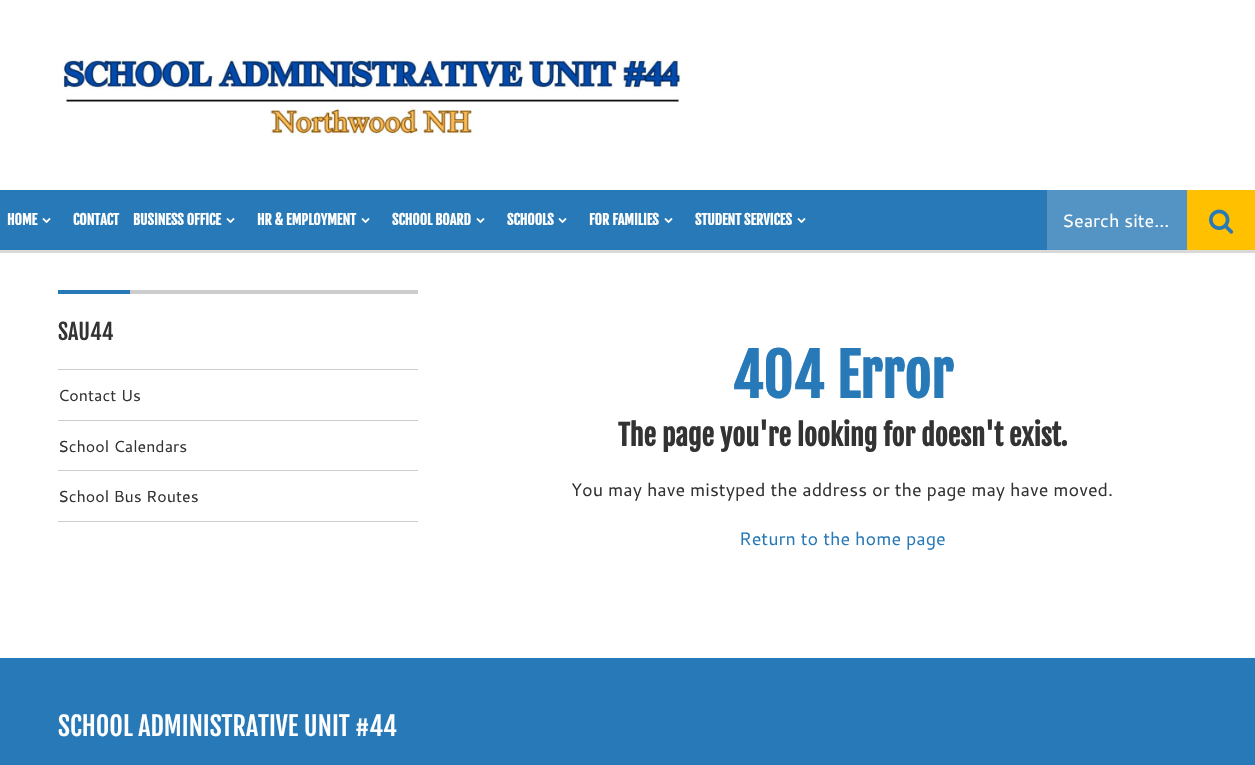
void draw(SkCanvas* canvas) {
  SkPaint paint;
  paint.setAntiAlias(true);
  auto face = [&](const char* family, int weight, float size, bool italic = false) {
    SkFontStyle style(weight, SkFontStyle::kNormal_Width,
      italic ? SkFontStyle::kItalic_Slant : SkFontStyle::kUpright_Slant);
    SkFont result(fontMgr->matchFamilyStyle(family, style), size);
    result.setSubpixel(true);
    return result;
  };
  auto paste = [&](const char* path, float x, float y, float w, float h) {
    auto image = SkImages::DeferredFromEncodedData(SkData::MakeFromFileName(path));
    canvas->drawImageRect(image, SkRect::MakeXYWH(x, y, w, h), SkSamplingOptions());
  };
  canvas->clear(0xffffffff);
  paste("img/1.png", 58, 56, 623, 82);
  paint.setColor(0xffd9d9d9);
  canvas->drawRect(SkRect::MakeXYWH(0, 250, 1255, 3), paint);
  paint.setColor(0xff2879b7);
  canvas->drawRect(SkRect::MakeXYWH(0, 190, 1047, 60), paint);
  paste("img/2.png", 42, 218, 9, 6);
  paste("img/2.png", 226, 218, 9, 6);
  paste("img/2.png", 361, 218, 9, 6);
  paste("img/2.png", 476, 218, 9, 6);
  paste("img/2.png", 558, 218, 9, 6);
  paste("img/2.png", 664, 218, 9, 6);
  paste("img/2.png", 797, 218, 9, 6);
  paint.setColor(0xff5394c5);
  canvas->drawRect(SkRect::MakeXYWH(1047, 190, 140, 60), paint);
  paint.setColor(0xffffc000);
  canvas->drawRect(SkRect::MakeXYWH(1187, 190, 68, 60), paint);
  paste("img/3.png", 1209, 209, 25, 25);
  {
    const struct { float x, y, w, h; SkColor color; } items[] = {
      {130, 290, 288, 4, 0xffcccccc},
      {58, 290, 72, 4, 0xff2879b7},
      {58, 369, 360, 1, 0xffcccccc},
      {58, 420, 360, 1, 0xffcccccc},
      {58, 470, 360, 1, 0xffcccccc},
      {58, 521, 360, 1, 0xffcccccc},
      {0, 658, 1255, 107, 0xff2879b7},
    };
    for (auto [x, y, w, h, color] : items) {
      paint.setColor(color);
      canvas->drawRect(SkRect::MakeXYWH(x, y, w, h), paint);
    }
  }
  auto f0 = face("Fjalla One", 700, 14);
  paint.setColor(0xffffffff);
  {
    const struct { const char* s; float x, y; } items[] = {
      {"HOME", 7, 225},
      {"CONTACT", 73, 225},
      {"BUSINESS OFFICE", 133, 225},
      {"HR & EMPLOYMENT", 257, 225},
      {"SCHOOL BOARD", 392, 225},
      {"SCHOOLS", 507, 225},
      {"FOR FAMILIES", 589, 225},
      {"STUDENT SERVICES", 695, 225},
    };
    for (auto [s, x, y] : items) {
      canvas->drawString(s, x, y, f0, paint);
    }
  }
  auto f1 = face("Cantarell", 400, 18);
  canvas->drawString("Search site...", 1062, 227, f1, paint);
  auto f2 = face("Fjalla One", 400, 22);
  paint.setColor(0xff333333);
  canvas->drawString("SAU44", 58, 340, f2, paint);
  auto f3 = face("Cantarell", 400, 16);
  {
    const struct { const char* s; float x, y; } items[] = {
      {"Contact Us", 58, 401},
      {"School Calendars", 58, 452},
      {"School Bus Routes", 58, 502},
    };
    for (auto [s, x, y] : items) {
      canvas->drawString(s, x, y, f3, paint);
    }
  }
  auto f4 = face("Fjalla One", 700, 58);
  paint.setColor(0xff2879b7);
  canvas->drawString("404 Error", 732, 398, f4, paint);
  auto f5 = face("Fjalla One", 700, 28);
  paint.setColor(0xff333333);
  canvas->drawString("The page you're looking for doesn't exist.", 618, 446, f5, paint);
  canvas->drawString("You may have mistyped the address or the page may have moved.", 571, 496, f1, paint);
  paint.setColor(0xff2879b7);
  canvas->drawString("Return to the home page", 739, 545, f1, paint);
  auto f6 = face("Fjalla One", 400, 26);
  paint.setColor(0xffffffff);
  canvas->drawString("SCHOOL ADMINISTRATIVE UNIT #44", 58, 736, f6, paint);
}
